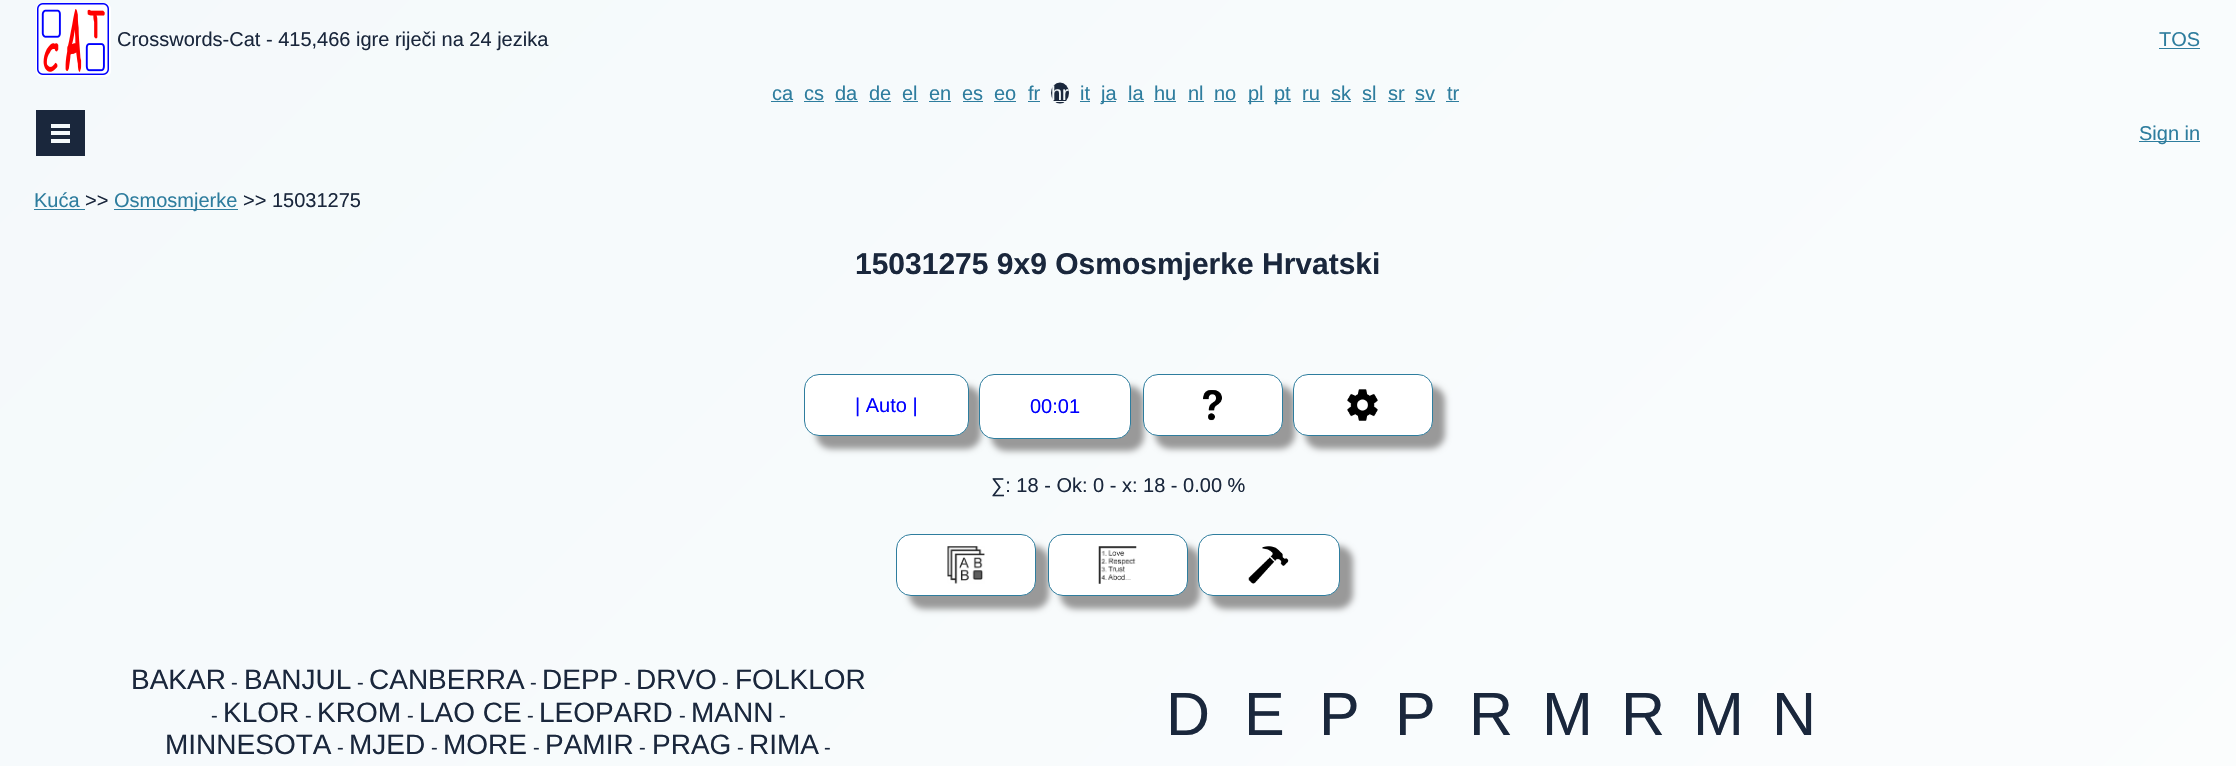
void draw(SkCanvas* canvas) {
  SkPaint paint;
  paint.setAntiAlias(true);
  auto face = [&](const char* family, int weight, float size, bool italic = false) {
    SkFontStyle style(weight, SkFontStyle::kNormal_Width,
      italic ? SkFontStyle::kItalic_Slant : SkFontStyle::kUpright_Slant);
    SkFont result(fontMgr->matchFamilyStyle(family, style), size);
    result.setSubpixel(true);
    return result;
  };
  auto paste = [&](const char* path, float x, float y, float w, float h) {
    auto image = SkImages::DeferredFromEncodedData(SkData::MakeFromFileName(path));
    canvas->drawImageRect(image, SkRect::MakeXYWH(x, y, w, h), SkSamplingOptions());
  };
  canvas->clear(0xffffffff);
  {
    const SkColor colors[] = {0xfff4f9fb, 0xffffffff};
    const float stops[] = {0, 1};
    const SkPoint ends[] = {{-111, 111}, {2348, 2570}};
    paint.setShader(SkGradientShader::MakeLinear(ends, colors, stops, 2, SkTileMode::kClamp));
    paint.setAlpha(255);
  }
  canvas->drawRect(SkRect::MakeXYWH(0, 0, 2236, 766), paint);
  paste("img/1.png", 36, 3, 75, 74);
  paint.setShader(nullptr);
  {
    const struct { float x, y, w, h; SkColor color; } items[] = {
      {2159, 48, 41, 1, 0xff2e7d9e},
      {771, 101, 22, 1, 0xff2e7d9e},
      {804, 101, 20, 1, 0xff2e7d9e},
      {835, 101, 23, 1, 0xff2e7d9e},
      {869, 101, 22, 1, 0xff2e7d9e},
      {903, 101, 15, 1, 0xff2e7d9e},
      {929, 101, 22, 1, 0xff2e7d9e},
      {963, 101, 20, 1, 0xff2e7d9e},
      {994, 101, 22, 1, 0xff2e7d9e},
      {1028, 101, 12, 1, 0xff2e7d9e},
    };
    for (auto [x, y, w, h, color] : items) {
      paint.setColor(color);
      canvas->drawRect(SkRect::MakeXYWH(x, y, w, h), paint);
    }
  }
  paint.setColor(0xff1a273c);
  canvas->drawOval(SkRect::MakeXYWH(1051, 82.5f, 18, 21), paint);
  {
    const struct { float x, y, w, h; SkColor color; } items[] = {
      {1051, 101, 18, 1, 0xfff4f9fb},
      {1080, 101, 10, 1, 0xff2e7d9e},
      {1101, 101, 15, 1, 0xff2e7d9e},
      {1128, 101, 16, 1, 0xff2e7d9e},
      {1154, 101, 22, 1, 0xff2e7d9e},
      {1188, 101, 16, 1, 0xff2e7d9e},
      {1214, 101, 22, 1, 0xff2e7d9e},
      {1248, 101, 16, 1, 0xff2e7d9e},
      {1274, 101, 17, 1, 0xff2e7d9e},
      {1303, 101, 17, 1, 0xff2e7d9e},
      {1331, 101, 20, 1, 0xff2e7d9e},
      {1363, 101, 13, 1, 0xff2e7d9e},
      {1388, 101, 17, 1, 0xff2e7d9e},
      {1415, 101, 20, 1, 0xff2e7d9e},
      {1446, 101, 13, 1, 0xff2e7d9e},
      {36, 110, 49, 46, 0xff1a273c},
      {51, 124, 19, 4, 0xfff4f9fb},
      {51, 131, 19, 4, 0xfff4f9fb},
      {51, 139, 19, 4, 0xfff4f9fb},
      {2139, 141, 61, 1, 0xff2e7d9e},
      {34, 209, 51, 1, 0xff2e7d9e},
      {114, 209, 124, 1, 0xff2e7d9e},
    };
    for (auto [x, y, w, h, color] : items) {
      paint.setColor(color);
      canvas->drawRect(SkRect::MakeXYWH(x, y, w, h), paint);
    }
  }
  paint.setColor(0xff999999);
  paint.setMaskFilter(SkMaskFilter::MakeBlur(kNormal_SkBlurStyle, 3));
  canvas->drawRoundRect(SkRect::MakeXYWH(816, 386, 165, 63), 15, 15, paint);
  paint.setMaskFilter(nullptr);
  paint.setColor(0xffffffff);
  canvas->drawRoundRect(SkRect::MakeXYWH(804.5f, 374.5f, 164, 61), 14.5f, 14.5f, paint);
  paint.setStroke(true);
  paint.setStrokeWidth(1);
  paint.setColor(0xff2e7d9e);
  canvas->drawRoundRect(SkRect::MakeXYWH(804.5f, 374.5f, 164, 61), 14.5f, 14.5f, paint);
  paint.setStroke(false);
  paint.setColor(0xff999999);
  paint.setMaskFilter(SkMaskFilter::MakeBlur(kNormal_SkBlurStyle, 3));
  canvas->drawRoundRect(SkRect::MakeXYWH(991, 386, 153, 65), 15, 15, paint);
  paint.setMaskFilter(nullptr);
  paint.setColor(0xffffffff);
  canvas->drawRoundRect(SkRect::MakeXYWH(979.5f, 374.5f, 151, 64), 14.5f, 14.5f, paint);
  paint.setStroke(true);
  paint.setColor(0xff2e7d9e);
  canvas->drawRoundRect(SkRect::MakeXYWH(979.5f, 374.5f, 151, 64), 14.5f, 14.5f, paint);
  paint.setStroke(false);
  paint.setColor(0xff999999);
  paint.setMaskFilter(SkMaskFilter::MakeBlur(kNormal_SkBlurStyle, 3));
  canvas->drawRoundRect(SkRect::MakeXYWH(1155, 386, 140, 63), 15, 15, paint);
  paint.setMaskFilter(nullptr);
  paint.setColor(0xffffffff);
  canvas->drawRoundRect(SkRect::MakeXYWH(1143.5f, 374.5f, 139, 61), 14.5f, 14.5f, paint);
  paint.setStroke(true);
  paint.setColor(0xff2e7d9e);
  canvas->drawRoundRect(SkRect::MakeXYWH(1143.5f, 374.5f, 139, 61), 14.5f, 14.5f, paint);
  paste("img/2.png", 1203, 390, 19, 31);
  paint.setStroke(false);
  paint.setColor(0xff999999);
  paint.setMaskFilter(SkMaskFilter::MakeBlur(kNormal_SkBlurStyle, 3));
  canvas->drawRoundRect(SkRect::MakeXYWH(1305, 386, 140, 63), 15, 15, paint);
  paint.setMaskFilter(nullptr);
  paint.setColor(0xffffffff);
  canvas->drawRoundRect(SkRect::MakeXYWH(1293.5f, 374.5f, 139, 61), 14.5f, 14.5f, paint);
  paint.setStroke(true);
  paint.setColor(0xff2e7d9e);
  canvas->drawRoundRect(SkRect::MakeXYWH(1293.5f, 374.5f, 139, 61), 14.5f, 14.5f, paint);
  paste("img/3.png", 1347, 389, 31, 32);
  paint.setStroke(false);
  paint.setColor(0xff999999);
  paint.setMaskFilter(SkMaskFilter::MakeBlur(kNormal_SkBlurStyle, 3));
  canvas->drawRoundRect(SkRect::MakeXYWH(909, 546, 140, 63), 15, 15, paint);
  paint.setMaskFilter(nullptr);
  paint.setColor(0xffffffff);
  canvas->drawRoundRect(SkRect::MakeXYWH(896.5f, 534.5f, 139, 61), 14.5f, 14.5f, paint);
  paint.setStroke(true);
  paint.setColor(0xff2e7d9e);
  canvas->drawRoundRect(SkRect::MakeXYWH(896.5f, 534.5f, 139, 61), 14.5f, 14.5f, paint);
  paste("img/4.png", 947, 546, 38, 38);
  paint.setStroke(false);
  paint.setColor(0xff999999);
  paint.setMaskFilter(SkMaskFilter::MakeBlur(kNormal_SkBlurStyle, 3));
  canvas->drawRoundRect(SkRect::MakeXYWH(1060, 546, 140, 63), 15, 15, paint);
  paint.setMaskFilter(nullptr);
  paint.setColor(0xffffffff);
  canvas->drawRoundRect(SkRect::MakeXYWH(1048.5f, 534.5f, 139, 61), 14.5f, 14.5f, paint);
  paint.setStroke(true);
  paint.setColor(0xff2e7d9e);
  canvas->drawRoundRect(SkRect::MakeXYWH(1048.5f, 534.5f, 139, 61), 14.5f, 14.5f, paint);
  paste("img/5.png", 1098, 546, 39, 38);
  paint.setStroke(false);
  paint.setColor(0xff999999);
  paint.setMaskFilter(SkMaskFilter::MakeBlur(kNormal_SkBlurStyle, 3));
  canvas->drawRoundRect(SkRect::MakeXYWH(1210, 546, 143, 63), 15, 15, paint);
  paint.setMaskFilter(nullptr);
  paint.setColor(0xffffffff);
  canvas->drawRoundRect(SkRect::MakeXYWH(1198.5f, 534.5f, 141, 61), 14.5f, 14.5f, paint);
  paint.setStroke(true);
  paint.setColor(0xff2e7d9e);
  canvas->drawRoundRect(SkRect::MakeXYWH(1198.5f, 534.5f, 141, 61), 14.5f, 14.5f, paint);
  paste("img/6.png", 1248, 546, 41, 38);
  auto f0 = face("Liberation Sans", 400, 20);
  paint.setStroke(false);
  paint.setColor(0xff1a273c);
  canvas->drawString("Crosswords-Cat - 415,466 igre riječi na 24 jezika", 117, 46, f0, paint);
  paint.setColor(0xff2e7d9e);
  {
    const struct { const char* s; float x, y; } items[] = {
      {"TOS", 2159, 46},
      {"ca", 772, 100},
      {"cs", 804, 100},
      {"da", 835, 100},
      {"de", 869, 100},
      {"el", 902, 100},
      {"en", 929, 100},
      {"es", 962, 100},
      {"eo", 994, 100},
      {"fr", 1028, 100},
    };
    for (auto [s, x, y] : items) {
      canvas->drawString(s, x, y, f0, paint);
    }
  }
  paint.setColor(0xfff4f9fb);
  canvas->drawString("hr", 1051, 100, f0, paint);
  paint.setColor(0xff2e7d9e);
  {
    const struct { const char* s; float x, y; } items[] = {
      {"it", 1080, 100},
      {"ja", 1101, 100},
      {"la", 1128, 100},
      {"hu", 1154, 100},
      {"nl", 1188, 100},
      {"no", 1214, 100},
      {"pl", 1248, 100},
      {"pt", 1274, 100},
      {"ru", 1302, 100},
      {"sk", 1331, 100},
      {"sl", 1362, 100},
      {"sr", 1388, 100},
      {"sv", 1415, 100},
      {"tr", 1447, 100},
      {"Sign in", 2139, 140},
      {"Kuća", 34, 207},
    };
    for (auto [s, x, y] : items) {
      canvas->drawString(s, x, y, f0, paint);
    }
  }
  paint.setColor(0xff1a273c);
  canvas->drawString(">>", 85, 207, f0, paint);
  paint.setColor(0xff2e7d9e);
  canvas->drawString("Osmosmjerke", 114, 207, f0, paint);
  paint.setColor(0xff1a273c);
  canvas->drawString(">> 15031275", 243, 207, f0, paint);
  auto f1 = face("Liberation Sans", 700, 30);
  canvas->drawString("15031275 9x9 Osmosmjerke Hrvatski", 855, 274, f1, paint);
  paint.setColor(0xff0000ff);
  canvas->drawString("| Auto |", 855, 412, f0, paint);
  canvas->drawString("00:01", 1030, 413, f0, paint);
  paint.setColor(0xff1a273c);
  canvas->drawString("∑: 18 - Ok: 0 - x: 18 - 0.00 %", 991, 492, f0, paint);
  auto f2 = face("Liberation Sans", 400, 28);
  canvas->drawString("BAKAR", 131, 689, f2, paint);
  canvas->drawString("-", 231, 689, f0, paint);
  canvas->drawString("BANJUL", 244, 689, f2, paint);
  canvas->drawString("-", 357, 689, f0, paint);
  canvas->drawString("CANBERRA", 369, 689, f2, paint);
  canvas->drawString("-", 530, 689, f0, paint);
  canvas->drawString("DEPP", 542, 689, f2, paint);
  canvas->drawString("-", 624, 689, f0, paint);
  canvas->drawString("DRVO", 636, 689, f2, paint);
  canvas->drawString("-", 722, 689, f0, paint);
  canvas->drawString("FOLKLOR", 735, 689, f2, paint);
  canvas->drawString("-", 211, 722, f0, paint);
  canvas->drawString("KLOR", 223, 722, f2, paint);
  canvas->drawString("-", 305, 722, f0, paint);
  canvas->drawString("KROM", 317, 722, f2, paint);
  canvas->drawString("-", 407, 722, f0, paint);
  canvas->drawString("LAO CE", 419, 722, f2, paint);
  canvas->drawString("-", 527, 722, f0, paint);
  canvas->drawString("LEOPARD", 539, 722, f2, paint);
  canvas->drawString("-", 679, 722, f0, paint);
  canvas->drawString("MANN", 691, 722, f2, paint);
  canvas->drawString("-", 779, 722, f0, paint);
  canvas->drawString("MINNESOTA", 165, 754, f2, paint);
  canvas->drawString("-", 337, 754, f0, paint);
  canvas->drawString("MJED", 349, 754, f2, paint);
  canvas->drawString("-", 431, 754, f0, paint);
  canvas->drawString("MORE", 443, 754, f2, paint);
  canvas->drawString("-", 533, 754, f0, paint);
  canvas->drawString("PAMIR", 545, 754, f2, paint);
  canvas->drawString("-", 639, 754, f0, paint);
  canvas->drawString("PRAG", 652, 754, f2, paint);
  canvas->drawString("-", 737, 754, f0, paint);
  canvas->drawString("RIMA", 749, 754, f2, paint);
  canvas->drawString("-", 824, 754, f0, paint);
  auto f3 = face("Liberation Sans", 400, 61);
  {
    const struct { const char* s; float x, y; } items[] = {
      {"D", 1166, 735},
      {"E", 1244, 735},
      {"P", 1319, 735},
      {"P", 1395, 735},
      {"R", 1469, 735},
      {"M", 1542, 735},
      {"R", 1621, 735},
      {"M", 1693, 735},
      {"N", 1772, 735},
    };
    for (auto [s, x, y] : items) {
      canvas->drawString(s, x, y, f3, paint);
    }
  }
}
